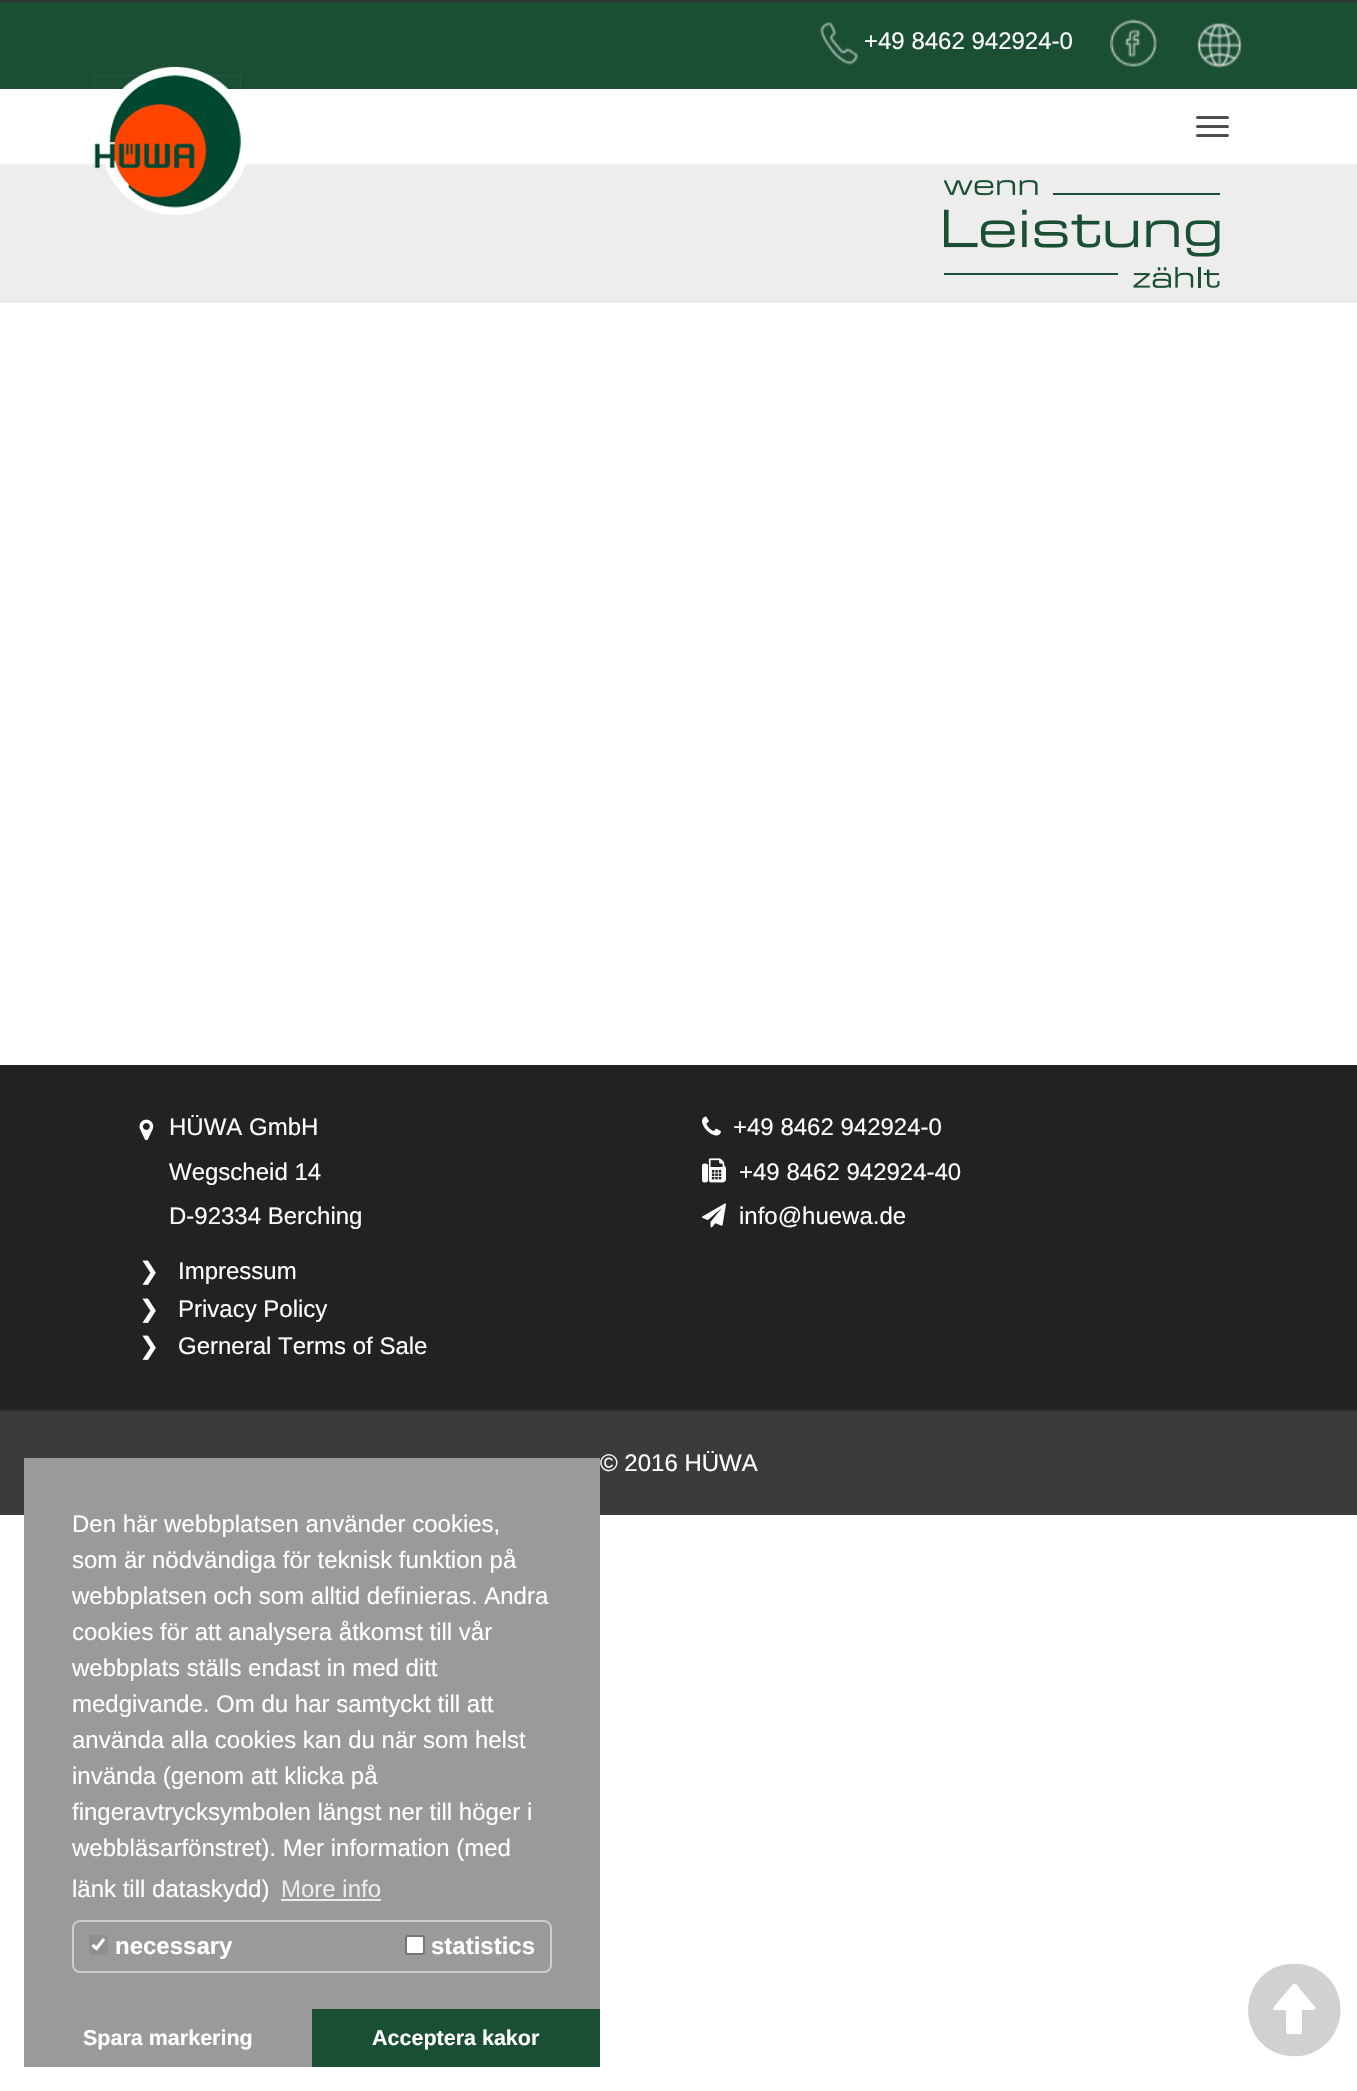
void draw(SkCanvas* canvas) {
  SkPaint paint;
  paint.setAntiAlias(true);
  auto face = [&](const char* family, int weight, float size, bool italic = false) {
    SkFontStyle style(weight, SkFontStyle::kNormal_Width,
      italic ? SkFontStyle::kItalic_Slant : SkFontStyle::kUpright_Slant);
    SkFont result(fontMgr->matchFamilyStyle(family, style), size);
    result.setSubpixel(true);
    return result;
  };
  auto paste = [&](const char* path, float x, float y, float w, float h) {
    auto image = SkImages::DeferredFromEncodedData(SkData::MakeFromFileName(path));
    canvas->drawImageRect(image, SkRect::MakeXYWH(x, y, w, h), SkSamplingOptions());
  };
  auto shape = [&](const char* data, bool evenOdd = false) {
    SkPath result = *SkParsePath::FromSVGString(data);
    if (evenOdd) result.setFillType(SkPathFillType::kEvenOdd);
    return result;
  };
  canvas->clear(0xffffffff);
  {
    const struct { float x, y, w, h; SkColor color; } items[] = {
      {0, 164, 1357, 2, 0xffeeeeee},
      {0, 2, 1357, 87, 0xff1b4f34},
      {0, 0, 1357, 2, 0xff343434},
    };
    for (auto [x, y, w, h, color] : items) {
      paint.setColor(color);
      canvas->drawRect(SkRect::MakeXYWH(x, y, w, h), paint);
    }
  }
  paste("img/1.png", 820, 22, 38, 43);
  paste("img/2.png", 1110, 19, 47, 48);
  paste("img/3.png", 1197, 23, 45, 45);
  paint.setColor(0xffededed);
  canvas->drawRect(SkRect::MakeXYWH(0, 166, 1357, 137), paint);
  paste("img/4.png", 94, 66, 152, 149);
  paint.setColor(0xff4d4d4d);
  canvas->drawRoundRect(SkRect::MakeXYWH(1196, 116, 33, 3), 1.5f, 1.5f, paint);
  canvas->drawRoundRect(SkRect::MakeXYWH(1196, 125, 33, 3), 1.5f, 1.5f, paint);
  canvas->drawRoundRect(SkRect::MakeXYWH(1196, 134, 33, 3), 1.5f, 1.5f, paint);
  paste("img/5.png", 944, 180, 276, 108);
  paint.setColor(0xff222222);
  canvas->drawRect(SkRect::MakeXYWH(0, 1065, 1357, 345), paint);
  paste("img/6.png", 139, 1119, 15, 22);
  paste("img/7.png", 702, 1116, 19, 20);
  paste("img/8.png", 702, 1158, 24, 25);
  paste("img/9.png", 702, 1203, 24, 25);
  paint.setColor(0xff3b3b3b);
  canvas->drawRect(SkRect::MakeXYWH(0, 1412, 1357, 103), paint);
  paint.setColor(0xff343434);
  canvas->drawRect(SkRect::MakeXYWH(0, 1410, 1357, 2), paint);
  paint.setColor(0xffd1d1d1);
  canvas->drawPath(shape("M1276 1967C1286 1963 1296 1963 1306 1965C1349 1976 1353 2035 1312 2053C1303 2057 1293 2057 1283 2055C1240 2044 1236 1985 1276 1967ZM1315 2007L1300 1989C1295 1982 1294 1982 1289 1989L1283 1996C1270 2012 1269 2010 1286 2010V2028C1286 2036 1287 2034 1294 2034C1302 2034 1302 2036 1302 2028V2010H1310C1312 2010 1318 2010 1315 2007Z"), paint);
  paint.setColor(0xff9a9a9a);
  canvas->drawRect(SkRect::MakeXYWH(24, 1458, 576, 609), paint);
  paint.setColor(0xffebebeb);
  canvas->drawRect(SkRect::MakeXYWH(281, 1899, 100, 2), paint);
  paint.setStroke(true);
  paint.setStrokeWidth(2);
  paint.setColor(0xffcdcdcd);
  canvas->drawRoundRect(SkRect::MakeXYWH(73, 1921, 478, 51), 7, 7, paint);
  paint.setStroke(false);
  paint.setColor(0xff8f8f8f);
  canvas->drawRoundRect(SkRect::MakeXYWH(89, 1935, 19, 20), 3, 3, paint);
  paint.setStroke(true);
  paint.setStrokeWidth(3.1f);
  paint.setColor(0xffffffff);
  canvas->drawPath(shape("M92.5 1945L96.5 1948.5L104 1939"), paint);
  paint.setStroke(false);
  canvas->drawRoundRect(SkRect::MakeXYWH(406, 1936, 18, 18), 2, 2, paint);
  paint.setStroke(true);
  paint.setStrokeWidth(2);
  paint.setColor(0xff767676);
  canvas->drawRoundRect(SkRect::MakeXYWH(406, 1936, 18, 18), 2, 2, paint);
  paint.setStroke(false);
  paint.setColor(0xff1b4f34);
  canvas->drawRect(SkRect::MakeXYWH(312, 2009, 288, 58), paint);
  auto f0 = face("Liberation Sans", 400, 24);
  paint.setColor(0xffffffff);
  {
    const struct { const char* s; float x, y; } items[] = {
      {"+49 8462 942924-0", 864, 49},
      {"HÜWA GmbH", 169, 1135},
      {"Wegscheid 14", 169, 1180},
      {"D-92334 Berching", 169, 1224},
      {"+49 8462 942924-0", 733, 1135},
      {"+49 8462 942924-40", 739, 1180},
      {"info@huewa.de", 739, 1224},
    };
    for (auto [s, x, y] : items) {
      canvas->drawString(s, x, y, f0, paint);
    }
  }
  auto f1 = face("DejaVu Sans", 400, 24);
  canvas->drawString("❯", 139, 1279, f1, paint);
  canvas->drawString("Impressum", 178, 1279, f0, paint);
  canvas->drawString("❯", 139, 1317, f1, paint);
  canvas->drawString("Privacy Policy", 178, 1317, f0, paint);
  canvas->drawString("❯", 139, 1354, f1, paint);
  {
    const struct { const char* s; float x, y; } items[] = {
      {"Gerneral Terms of Sale", 178, 1354},
      {"© 2016 HÜWA", 600, 1471},
      {"Den här webbplatsen använder cookies,", 72, 1532},
      {"som är nödvändiga för teknisk funktion på", 72, 1568},
      {"webbplatsen och som alltid definieras. Andra", 72, 1604},
      {"cookies för att analysera åtkomst till vår", 72, 1640},
      {"webbplats ställs endast in med ditt", 72, 1676},
      {"medgivande. Om du har samtyckt till att", 72, 1712},
      {"använda alla cookies kan du när som helst", 72, 1748},
      {"invända (genom att klicka på", 72, 1784},
      {"fingeravtrycksymbolen längst ner till höger i", 72, 1820},
      {"webbläsarfönstret). Mer information (med", 72, 1856},
      {"länk till dataskydd)", 72, 1897},
    };
    for (auto [s, x, y] : items) {
      canvas->drawString(s, x, y, f0, paint);
    }
  }
  paint.setColor(0xffebebeb);
  canvas->drawString("More info", 281, 1897, f0, paint);
  auto f2 = face("Liberation Sans", 700, 24);
  paint.setColor(0xffffffff);
  canvas->drawString("necessary", 115, 1954, f2, paint);
  canvas->drawString("statistics", 431, 1954, f2, paint);
  auto f3 = face("Liberation Sans", 700, 21.5f);
  canvas->drawString("Spara markering", 83, 2045, f3, paint);
  canvas->drawString("Acceptera kakor", 372, 2045, f3, paint);
}
